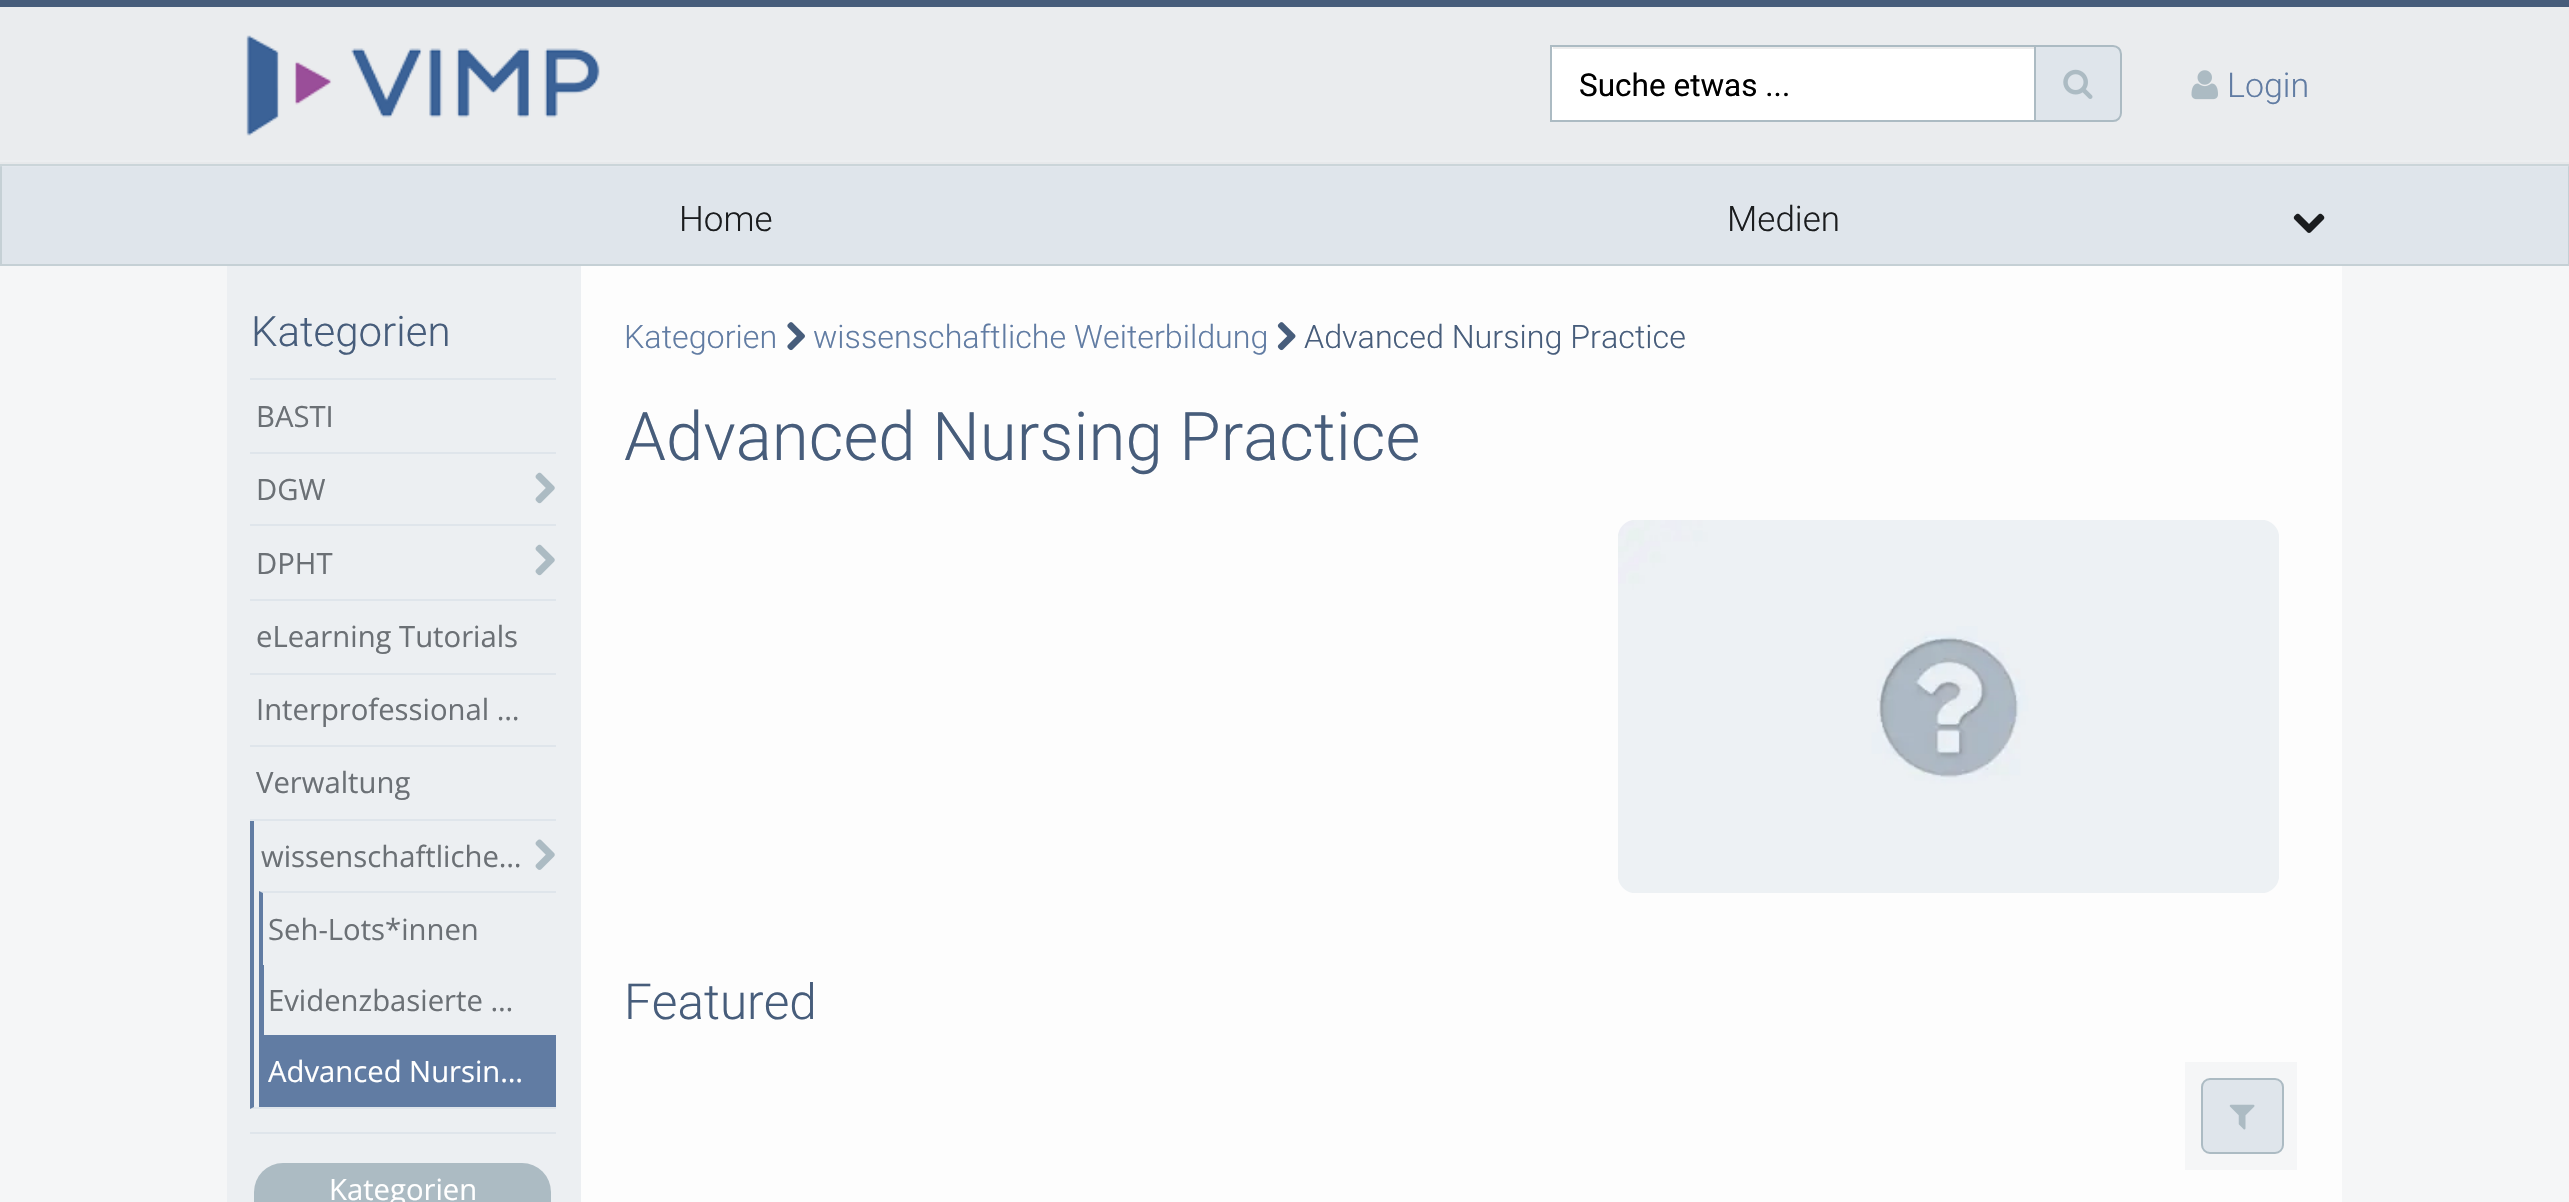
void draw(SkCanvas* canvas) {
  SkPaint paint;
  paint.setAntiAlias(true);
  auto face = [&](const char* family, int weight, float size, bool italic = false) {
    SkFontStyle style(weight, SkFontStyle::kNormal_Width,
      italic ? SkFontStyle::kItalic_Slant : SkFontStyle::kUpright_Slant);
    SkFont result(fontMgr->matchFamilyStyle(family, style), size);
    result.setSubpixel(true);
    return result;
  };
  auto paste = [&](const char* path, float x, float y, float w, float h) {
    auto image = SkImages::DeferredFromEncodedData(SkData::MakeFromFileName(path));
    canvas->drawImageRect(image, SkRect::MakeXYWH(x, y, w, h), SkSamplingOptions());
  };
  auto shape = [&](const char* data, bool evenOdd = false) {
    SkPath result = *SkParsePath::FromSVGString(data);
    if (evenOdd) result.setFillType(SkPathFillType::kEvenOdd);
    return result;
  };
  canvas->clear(0xfff5f6f7);
  paint.setColor(0xffdfe5eb);
  canvas->drawRect(SkRect::MakeXYWH(1, 165, 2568, 100), paint);
  paint.setStroke(true);
  paint.setStrokeWidth(2);
  paint.setColor(0xffc5d0d5);
  canvas->drawRect(SkRect::MakeXYWH(1, 165, 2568, 100), paint);
  paint.setStroke(false);
  paint.setColor(0x1affffff);
  canvas->drawPath(shape("M0 164V167H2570V2V164Z"), paint);
  {
    const struct { float x, y, w, h; SkColor color; } items[] = {
      {0, 7, 2569, 153, 0xffeaecee},
      {0, 160, 2569, 2, 0xffeceef0},
      {0, 0, 2569, 7, 0xff475d7b},
      {0, 162, 2569, 2, 0xffe7e9eb},
    };
    for (auto [x, y, w, h, color] : items) {
      paint.setColor(color);
      canvas->drawRect(SkRect::MakeXYWH(x, y, w, h), paint);
    }
  }
  paste("img/1.png", 246, 35, 354, 101);
  paint.setColor(0xffffffff);
  canvas->drawRect(SkRect::MakeXYWH(1552, 47, 482, 73), paint);
  paint.setColor(0xffececec);
  canvas->drawRect(SkRect::MakeXYWH(1553, 47, 481, 2), paint);
  paint.setStroke(true);
  paint.setColor(0xffacbbc3);
  canvas->drawRect(SkRect::MakeXYWH(1551, 46, 484, 75), paint);
  paint.setStroke(false);
  paint.setColor(0xffdfe5eb);
  canvas->drawPath(shape("M2035 46H2113C2117.5 46 2121 49.5 2121 54V113C2121 117.5 2117.5 121 2113 121H2035Z"), paint);
  paint.setStroke(true);
  paint.setColor(0xffacbbc3);
  canvas->drawPath(shape("M2035 46H2113C2117.5 46 2121 49.5 2121 54V113C2121 117.5 2117.5 121 2113 121H2035Z"), paint);
  paste("img/2.png", 2063, 69, 30, 30);
  paste("img/3.png", 2191, 70, 27, 30);
  paste("img/4.png", 2293, 213, 32, 20);
  paint.setStroke(false);
  {
    const SkColor colors[] = {0xffeceff2, 0xfff0f3f5, 0xfff5f7f8};
    const float stops[] = {0.9f, 0.95f, 1};
    const SkPoint ends[] = {{404, 266}, {404, 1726}};
    paint.setShader(SkGradientShader::MakeLinear(ends, colors, stops, 3, SkTileMode::kClamp));
    paint.setAlpha(255);
  }
  canvas->drawRect(SkRect::MakeXYWH(227, 266, 354, 936), paint);
  paint.setShader(nullptr);
  {
    const struct { float x, y, w, h; SkColor color; } items[] = {
      {250, 378, 306, 2, 0xffdfe5eb},
      {250, 452, 306, 2, 0xffdfe5eb},
      {250, 524, 306, 2, 0xffdfe5eb},
    };
    for (auto [x, y, w, h, color] : items) {
      paint.setColor(color);
      canvas->drawRect(SkRect::MakeXYWH(x, y, w, h), paint);
    }
  }
  paste("img/5.png", 535, 472, 20, 32);
  canvas->drawRect(SkRect::MakeXYWH(250, 599, 306, 2), paint);
  paste("img/5.png", 535, 544, 20, 32);
  {
    const struct { float x, y, w, h; SkColor color; } items[] = {
      {250, 673, 306, 2, 0xffdfe5eb},
      {250, 745, 306, 2, 0xffdfe5eb},
      {250, 819, 306, 2, 0xffdfe5eb},
    };
    for (auto [x, y, w, h, color] : items) {
      paint.setColor(color);
      canvas->drawRect(SkRect::MakeXYWH(x, y, w, h), paint);
    }
  }
  canvas->drawPath(shape("M556 1109H250L254 1107H556Z"), paint);
  paint.setColor(0xff617ca3);
  canvas->drawPath(shape("M250 1109V821H254V1107Z"), paint);
  paste("img/6.png", 535, 839, 20, 31);
  paint.setColor(0xffdfe5eb);
  canvas->drawPath(shape("M259 891H556V893H263Z"), paint);
  paint.setColor(0xff617ca3);
  canvas->drawPath(shape("M259 965V891L263 893V965Z"), paint);
  {
    const struct { float x, y, w, h; SkColor color; } items[] = {
      {259, 965, 5, 70, 0xff617ca3},
      {259, 1035, 297, 72, 0xff617ca3},
      {250, 1132, 306, 2, 0xffdfe5eb},
    };
    for (auto [x, y, w, h, color] : items) {
      paint.setColor(color);
      canvas->drawRect(SkRect::MakeXYWH(x, y, w, h), paint);
    }
  }
  paint.setColor(0xffacbbc3);
  canvas->drawRoundRect(SkRect::MakeXYWH(254, 1163, 297, 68), 29, 29, paint);
  paint.setColor(0xfffdfdfd);
  canvas->drawRect(SkRect::MakeXYWH(581, 266, 1761, 936), paint);
  paste("img/7.png", 787, 322, 18, 29);
  paste("img/8.png", 1277, 322, 19, 29);
  paste("img/9.png", 1618, 520, 661, 373);
  paint.setColor(0xfff5f6f7);
  canvas->drawRect(SkRect::MakeXYWH(2185, 1062, 112, 108), paint);
  paint.setColor(0xffdfe5eb);
  canvas->drawRoundRect(SkRect::MakeXYWH(2202, 1079, 81, 74), 8, 8, paint);
  paint.setStroke(true);
  paint.setColor(0xffacbbc3);
  canvas->drawRoundRect(SkRect::MakeXYWH(2202, 1079, 81, 74), 8, 8, paint);
  paste("img/10.png", 2229, 1104, 26, 26);
  auto f0 = face("Roboto", 400, 31.5f);
  paint.setStroke(false);
  paint.setColor(0xff000000);
  canvas->drawString("Suche etwas ...", 1579, 96, f0, paint);
  auto f1 = face("Roboto", 300, 34);
  paint.setColor(0xff617ca3);
  canvas->drawString("Login", 2227, 97, f1, paint);
  auto f2 = face("Roboto", 300, 35);
  paint.setColor(0xff1a1c1e);
  canvas->drawString("Home", 679, 231, f2, paint);
  canvas->drawString("Medien", 1727, 231, f2, paint);
  auto f3 = face("Roboto", 300, 42);
  paint.setColor(0xff475d7b);
  canvas->drawString("Kategorien", 251, 346, f3, paint);
  auto f4 = face("Open Sans", 400, 29.25f);
  paint.setColor(0xff6b7075);
  {
    const struct { const char* s; float x, y; } items[] = {
      {"BASTI", 256, 427},
      {"DGW", 256, 500},
      {"DPHT", 256, 574},
      {"eLearning Tutorials", 256, 647},
      {"Interprofessional …", 256, 720},
      {"Verwaltung", 256, 793},
      {"wissenschaftliche…", 261, 867},
      {"Seh-Lots*innen", 268, 940},
      {"Evidenzbasierte …", 268, 1011},
    };
    for (auto [s, x, y] : items) {
      canvas->drawString(s, x, y, f4, paint);
    }
  }
  paint.setColor(0xffffffff);
  canvas->drawString("Advanced Nursin…", 268, 1082, f4, paint);
  canvas->drawString("Kategorien", 329, 1200, f4, paint);
  auto f5 = face("Roboto", 300, 32.25f);
  paint.setColor(0xff617ca3);
  canvas->drawString("Kategorien", 624, 348, f5, paint);
  canvas->drawString("wissenschaftliche Weiterbildung", 813, 348, f5, paint);
  paint.setColor(0xff475d7b);
  canvas->drawString("Advanced Nursing Practice", 1304, 348, f5, paint);
  auto f6 = face("Roboto", 300, 67.25f);
  canvas->drawString("Advanced Nursing Practice", 624, 460, f6, paint);
  auto f7 = face("Roboto", 300, 49.5f);
  canvas->drawString("Featured", 624, 1019, f7, paint);
}
